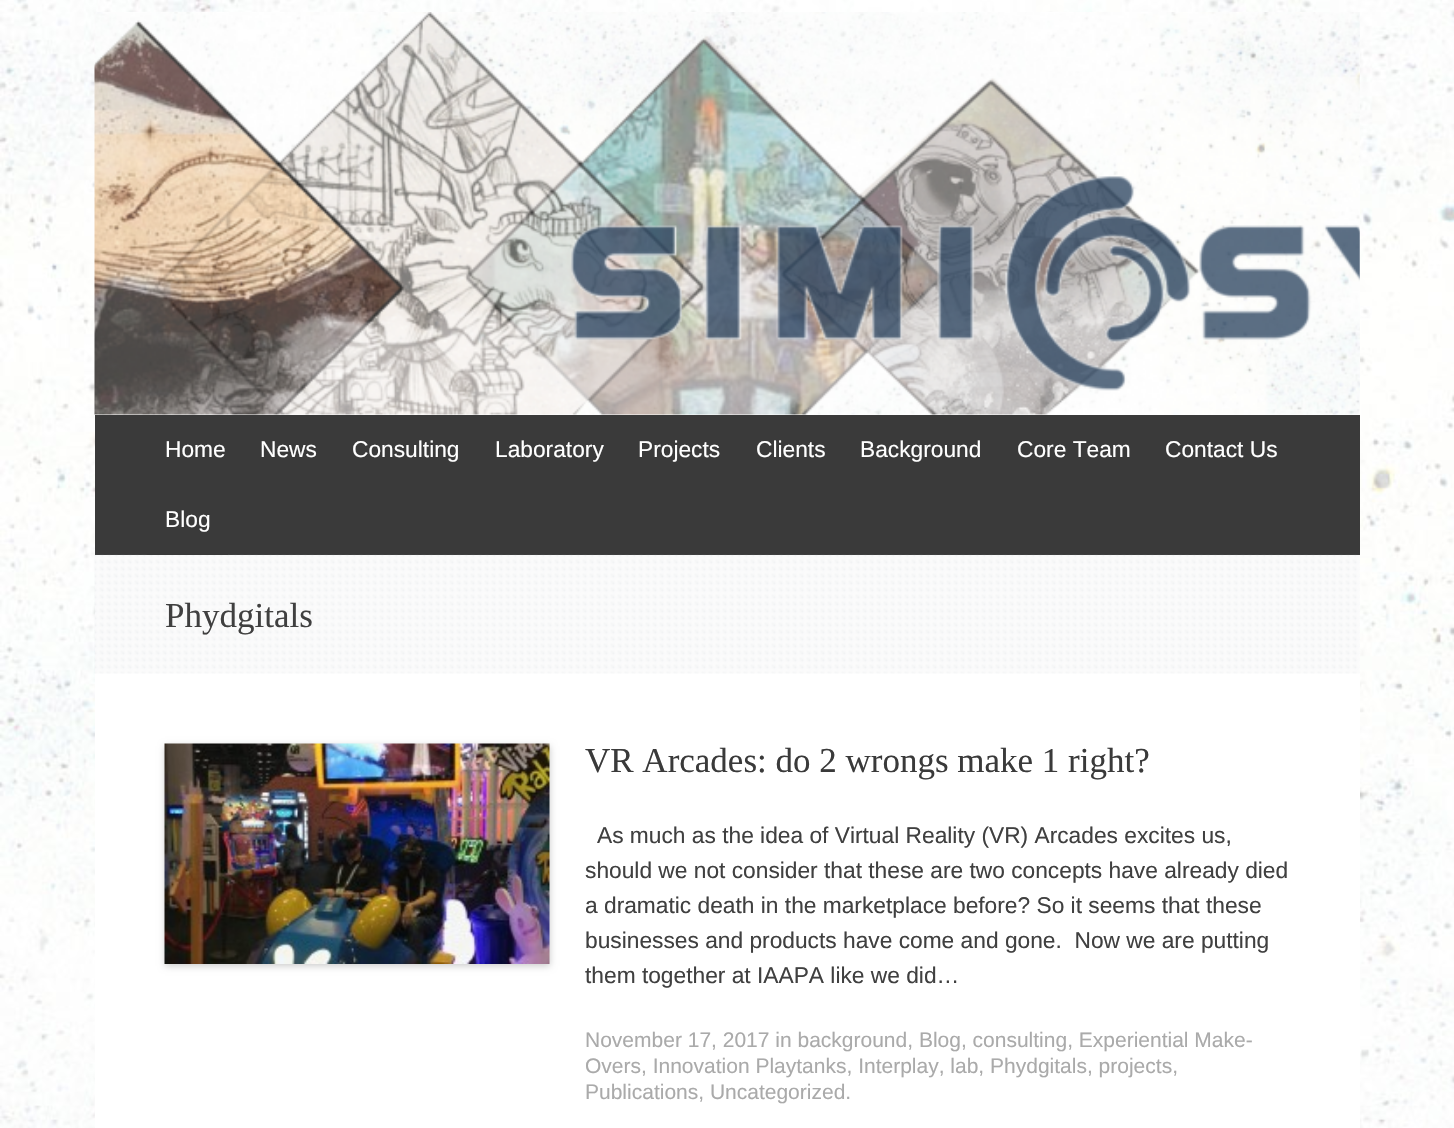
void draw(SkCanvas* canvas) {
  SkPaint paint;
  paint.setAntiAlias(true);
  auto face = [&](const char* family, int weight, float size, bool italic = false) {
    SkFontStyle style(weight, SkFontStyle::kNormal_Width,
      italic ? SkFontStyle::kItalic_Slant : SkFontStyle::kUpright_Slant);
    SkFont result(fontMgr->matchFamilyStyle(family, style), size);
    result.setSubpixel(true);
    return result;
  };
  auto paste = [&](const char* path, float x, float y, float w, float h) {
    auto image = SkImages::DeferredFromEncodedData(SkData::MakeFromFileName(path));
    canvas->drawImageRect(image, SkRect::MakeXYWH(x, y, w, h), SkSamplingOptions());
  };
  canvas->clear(0xffffffff);
  paste("img/1.png", 0, 0, 1454, 1128);
  paint.setColor(0xffffffff);
  canvas->drawRect(SkRect::MakeXYWH(95, 12, 1265, 1116), paint);
  paste("img/2.png", 94, 12, 1266, 403);
  paint.setColor(0xff3a3a3a);
  canvas->drawRect(SkRect::MakeXYWH(95, 415, 1265, 140), paint);
  paste("img/3.png", 94, 554, 1266, 120);
  canvas->drawRect(SkRect::MakeXYWH(147, 554, 81, 1), paint);
  paint.setColor(0x33000000);
  paint.setMaskFilter(SkMaskFilter::MakeBlur(kNormal_SkBlurStyle, 3.5f));
  canvas->drawRect(SkRect::MakeXYWH(165, 746, 385, 220), paint);
  paint.setMaskFilter(nullptr);
  paste("img/4.png", 164, 743, 386, 221);
  auto f0 = face("Liberation Sans", 400, 22.75f);
  paint.setColor(0xffffffff);
  {
    const struct { const char* s; float x, y; } items[] = {
      {"Home", 165, 457},
      {"News", 260, 457},
      {"Consulting", 352, 457},
      {"Laboratory", 495, 457},
      {"Projects", 638, 457},
      {"Clients", 756, 457},
      {"Background", 860, 457},
      {"Core Team", 1017, 457},
      {"Contact Us", 1165, 457},
      {"Blog", 165, 527},
    };
    for (auto [s, x, y] : items) {
      canvas->drawString(s, x, y, f0, paint);
    }
  }
  auto f1 = face("Liberation Serif", 400, 35);
  paint.setColor(0xff404040);
  canvas->drawString("Phydgitals", 165, 627, f1, paint);
  paint.setColor(0xff3a3a3a);
  canvas->drawString("VR Arcades: do 2 wrongs make 1 right?", 585, 772, f1, paint);
  paint.setColor(0xff404040);
  {
    const struct { const char* s; float x, y; } items[] = {
      {"As much as the idea of Virtual Reality (VR) Arcades excites us,", 597, 843},
      {"should we not consider that these are two concepts have already died", 585, 878},
      {"a dramatic death in the marketplace before? So it seems that these", 585, 913},
      {"businesses and products have come and gone.  Now we are putting", 585, 948},
      {"them together at IAAPA like we did…", 585, 983},
    };
    for (auto [s, x, y] : items) {
      canvas->drawString(s, x, y, f0, paint);
    }
  }
  auto f2 = face("Liberation Sans", 400, 21);
  paint.setColor(0xffaaaaaa);
  {
    const struct { const char* s; float x, y; } items[] = {
      {"November 17, 2017 in background, Blog, consulting, Experiential Make-", 585, 1047},
      {"Overs, Innovation Playtanks, Interplay, lab, Phydgitals, projects,", 585, 1073},
      {"Publications, Uncategorized.", 585, 1099},
    };
    for (auto [s, x, y] : items) {
      canvas->drawString(s, x, y, f2, paint);
    }
  }
}
